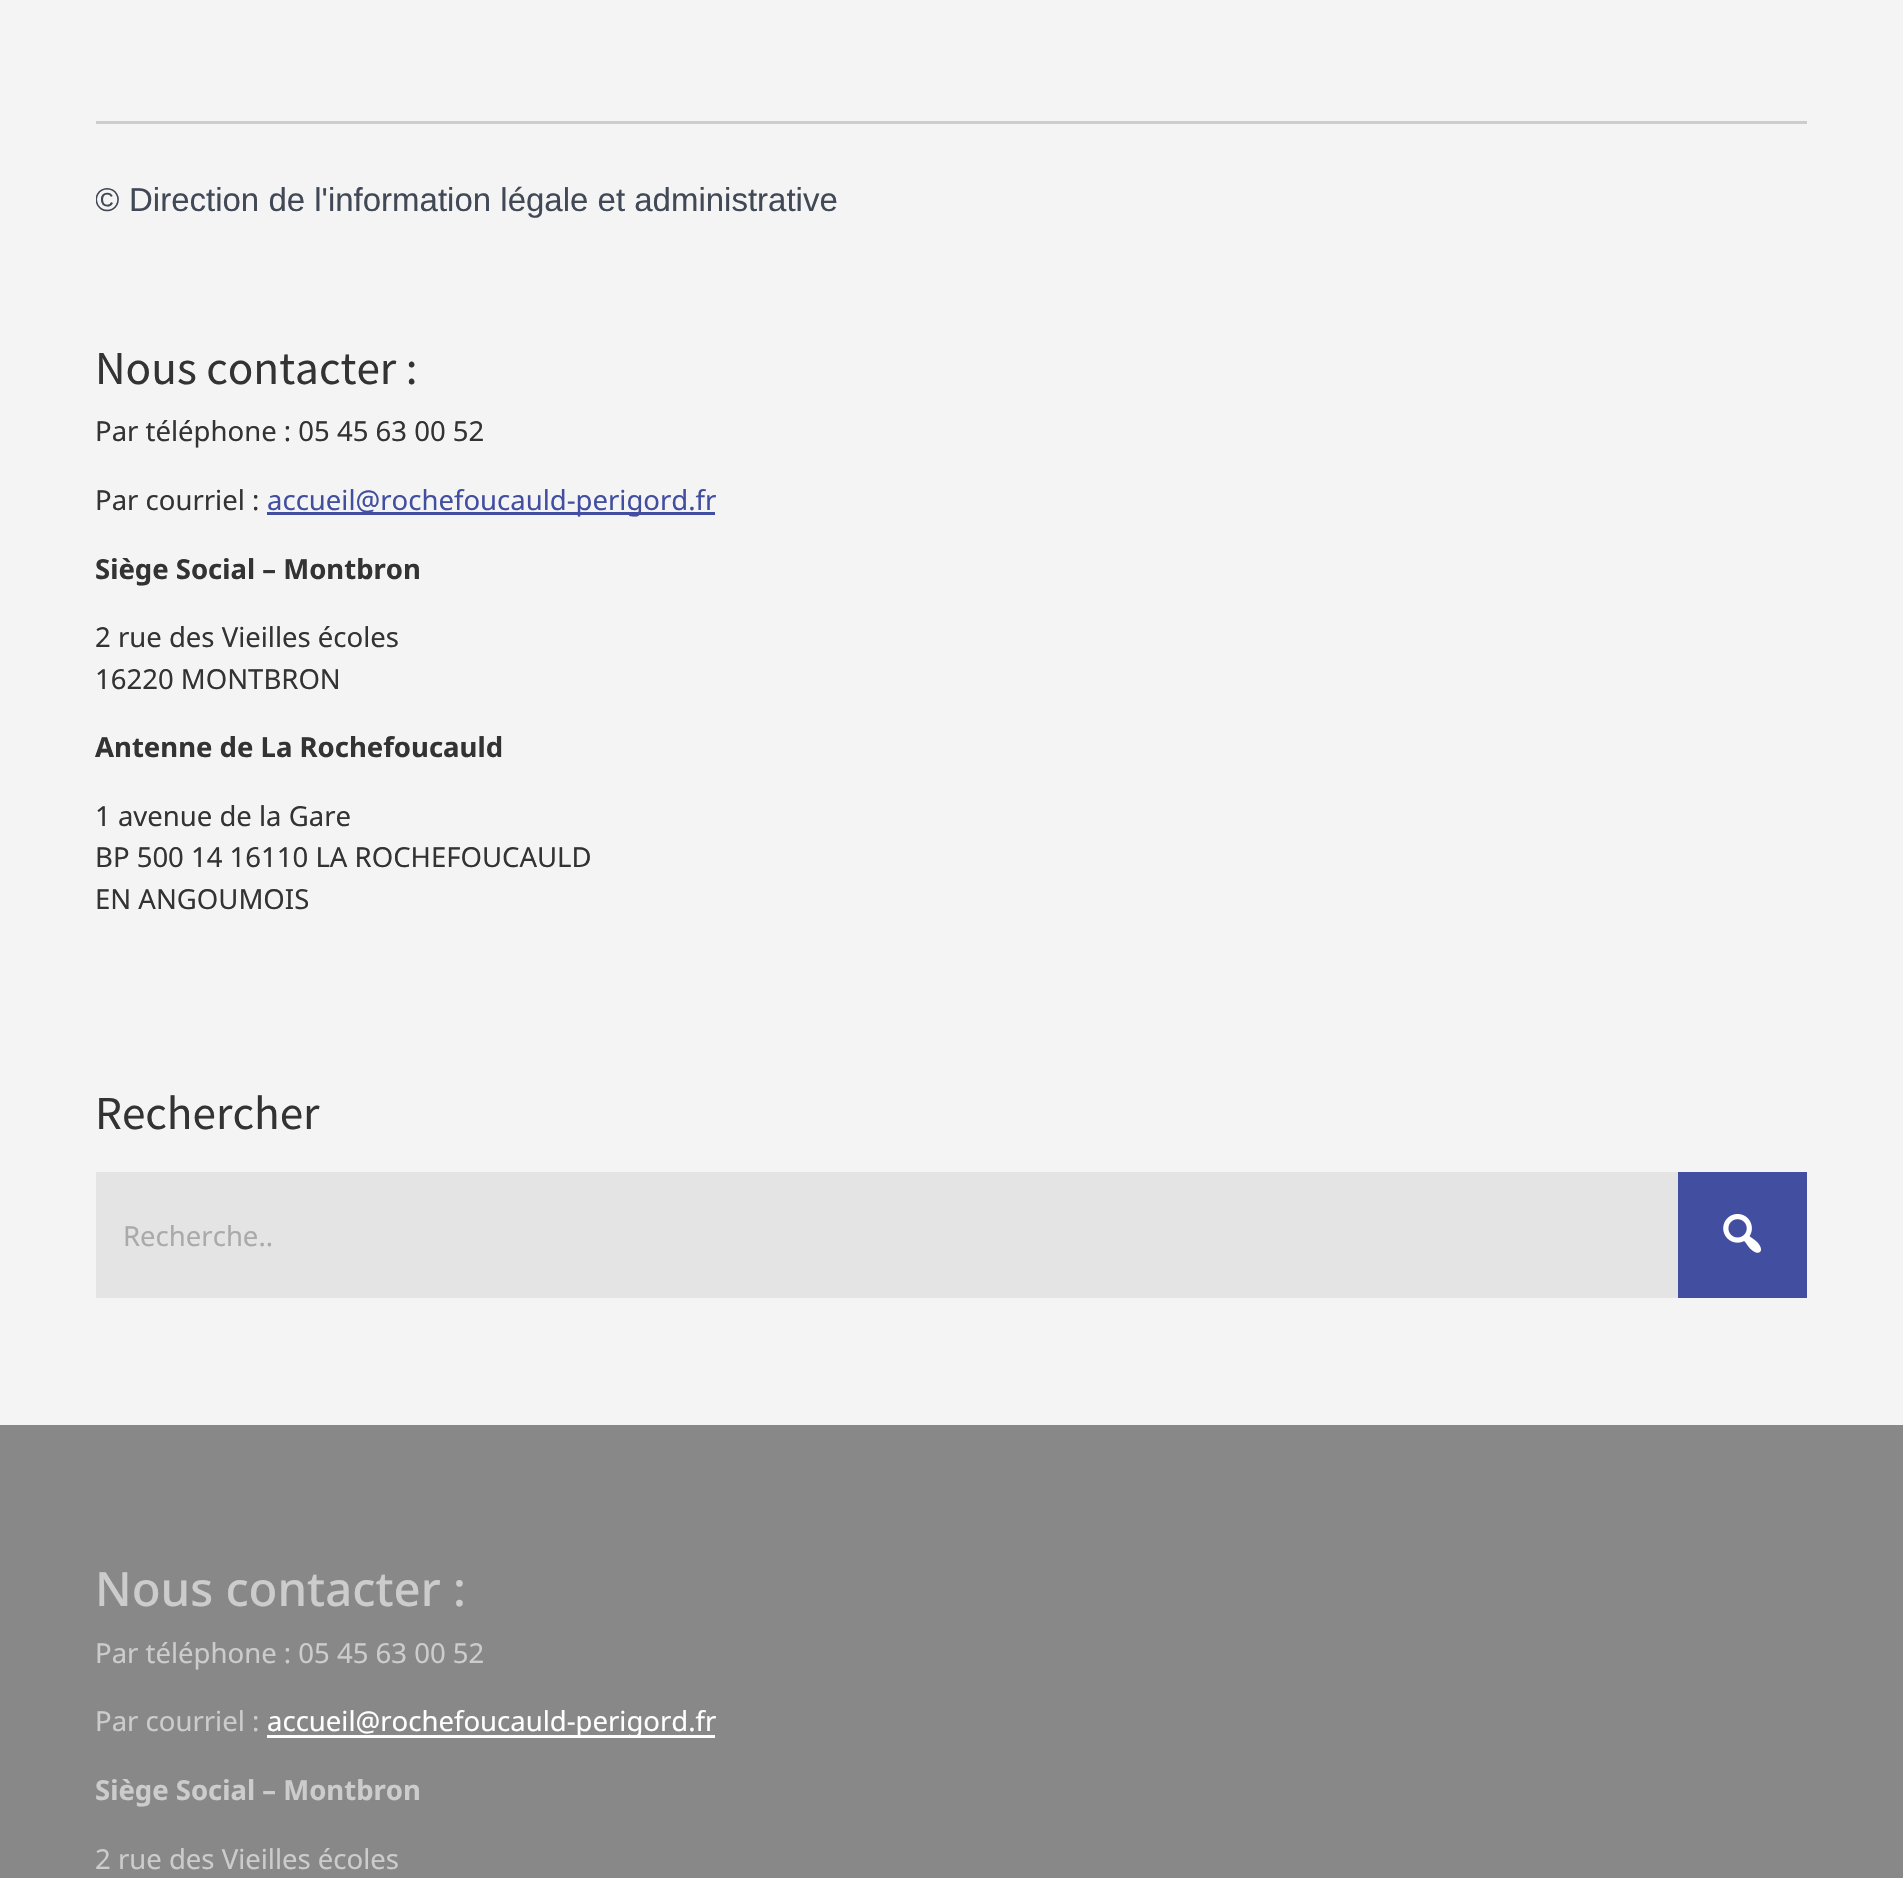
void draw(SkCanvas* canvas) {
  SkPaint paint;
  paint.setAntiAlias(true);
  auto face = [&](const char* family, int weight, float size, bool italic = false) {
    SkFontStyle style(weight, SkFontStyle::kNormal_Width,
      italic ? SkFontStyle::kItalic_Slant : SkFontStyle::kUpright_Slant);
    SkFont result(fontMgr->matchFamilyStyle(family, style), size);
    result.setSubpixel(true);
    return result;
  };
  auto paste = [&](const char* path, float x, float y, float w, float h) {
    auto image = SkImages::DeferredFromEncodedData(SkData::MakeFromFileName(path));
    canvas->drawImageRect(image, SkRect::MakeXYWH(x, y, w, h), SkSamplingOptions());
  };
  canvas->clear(0xfff4f4f4);
  {
    const struct { float x, y, w, h; SkColor color; } items[] = {
      {96, 121, 1711, 3, 0xffcccccc},
      {267, 512, 448, 3, 0xff424e9f},
      {96, 1172, 1582, 126, 0xffe4e4e4},
      {1678, 1172, 129, 126, 0xff424e9f},
    };
    for (auto [x, y, w, h, color] : items) {
      paint.setColor(color);
      canvas->drawRect(SkRect::MakeXYWH(x, y, w, h), paint);
    }
  }
  paste("img/1.png", 1723, 1214, 39, 39);
  paint.setColor(0xff888888);
  canvas->drawRect(SkRect::MakeXYWH(0, 1425, 1903, 453), paint);
  paint.setColor(0xffffffff);
  canvas->drawRect(SkRect::MakeXYWH(267, 1735, 448, 3), paint);
  canvas->save();
  canvas->clipRect(SkRect::MakeXYWH(96, 0, 1711, 231));
  auto f0 = face("Liberation Sans", 400, 33);
  paint.setColor(0xff414856);
  canvas->drawString("©", 95, 211, f0, paint);
  canvas->restore();
  canvas->drawString("Direction de l'information légale et administrative", 129, 211, f0, paint);
  auto f1 = face("Source Sans Pro", 400, 47.25f);
  paint.setColor(0xff333333);
  canvas->drawString("Nous contacter :", 95, 384, f1, paint);
  auto f2 = face("Noto Sans", 400, 27.5f);
  canvas->drawString("Par téléphone : 05 45 63 00 52", 95, 441, f2, paint);
  canvas->drawString("Par courriel :", 95, 510, f2, paint);
  paint.setColor(0xff424e9f);
  canvas->drawString("accueil@rochefoucauld-perigord.fr", 267, 510, f2, paint);
  auto f3 = face("Noto Sans", 700, 27.5f);
  paint.setColor(0xff333333);
  canvas->drawString("Siège Social – Montbron", 95, 579, f3, paint);
  canvas->drawString("2 rue des Vieilles écoles", 95, 647, f2, paint);
  canvas->drawString("16220 MONTBRON", 95, 689, f2, paint);
  canvas->drawString("Antenne de La Rochefoucauld", 95, 757, f3, paint);
  {
    const struct { const char* s; float x, y; } items[] = {
      {"1 avenue de la Gare", 95, 826},
      {"BP 500 14 16110 LA ROCHEFOUCAULD", 95, 867},
      {"EN ANGOUMOIS", 95, 909},
    };
    for (auto [s, x, y] : items) {
      canvas->drawString(s, x, y, f2, paint);
    }
  }
  canvas->drawString("Rechercher", 95, 1129, f1, paint);
  paint.setColor(0xffaaaaaa);
  canvas->drawString("Recherche..", 123, 1246, f2, paint);
  auto f4 = face("Noto Sans", 500, 47.25f);
  paint.setColor(0xffcccccc);
  canvas->drawString("Nous contacter :", 95, 1606, f4, paint);
  canvas->drawString("Par téléphone : 05 45 63 00 52", 95, 1663, f2, paint);
  canvas->drawString("Par courriel :", 95, 1731, f2, paint);
  paint.setColor(0xffffffff);
  canvas->drawString("accueil@rochefoucauld-perigord.fr", 267, 1731, f2, paint);
  paint.setColor(0xffcccccc);
  canvas->drawString("Siège Social – Montbron", 95, 1800, f3, paint);
  canvas->drawString("2 rue des Vieilles écoles", 95, 1869, f2, paint);
}
